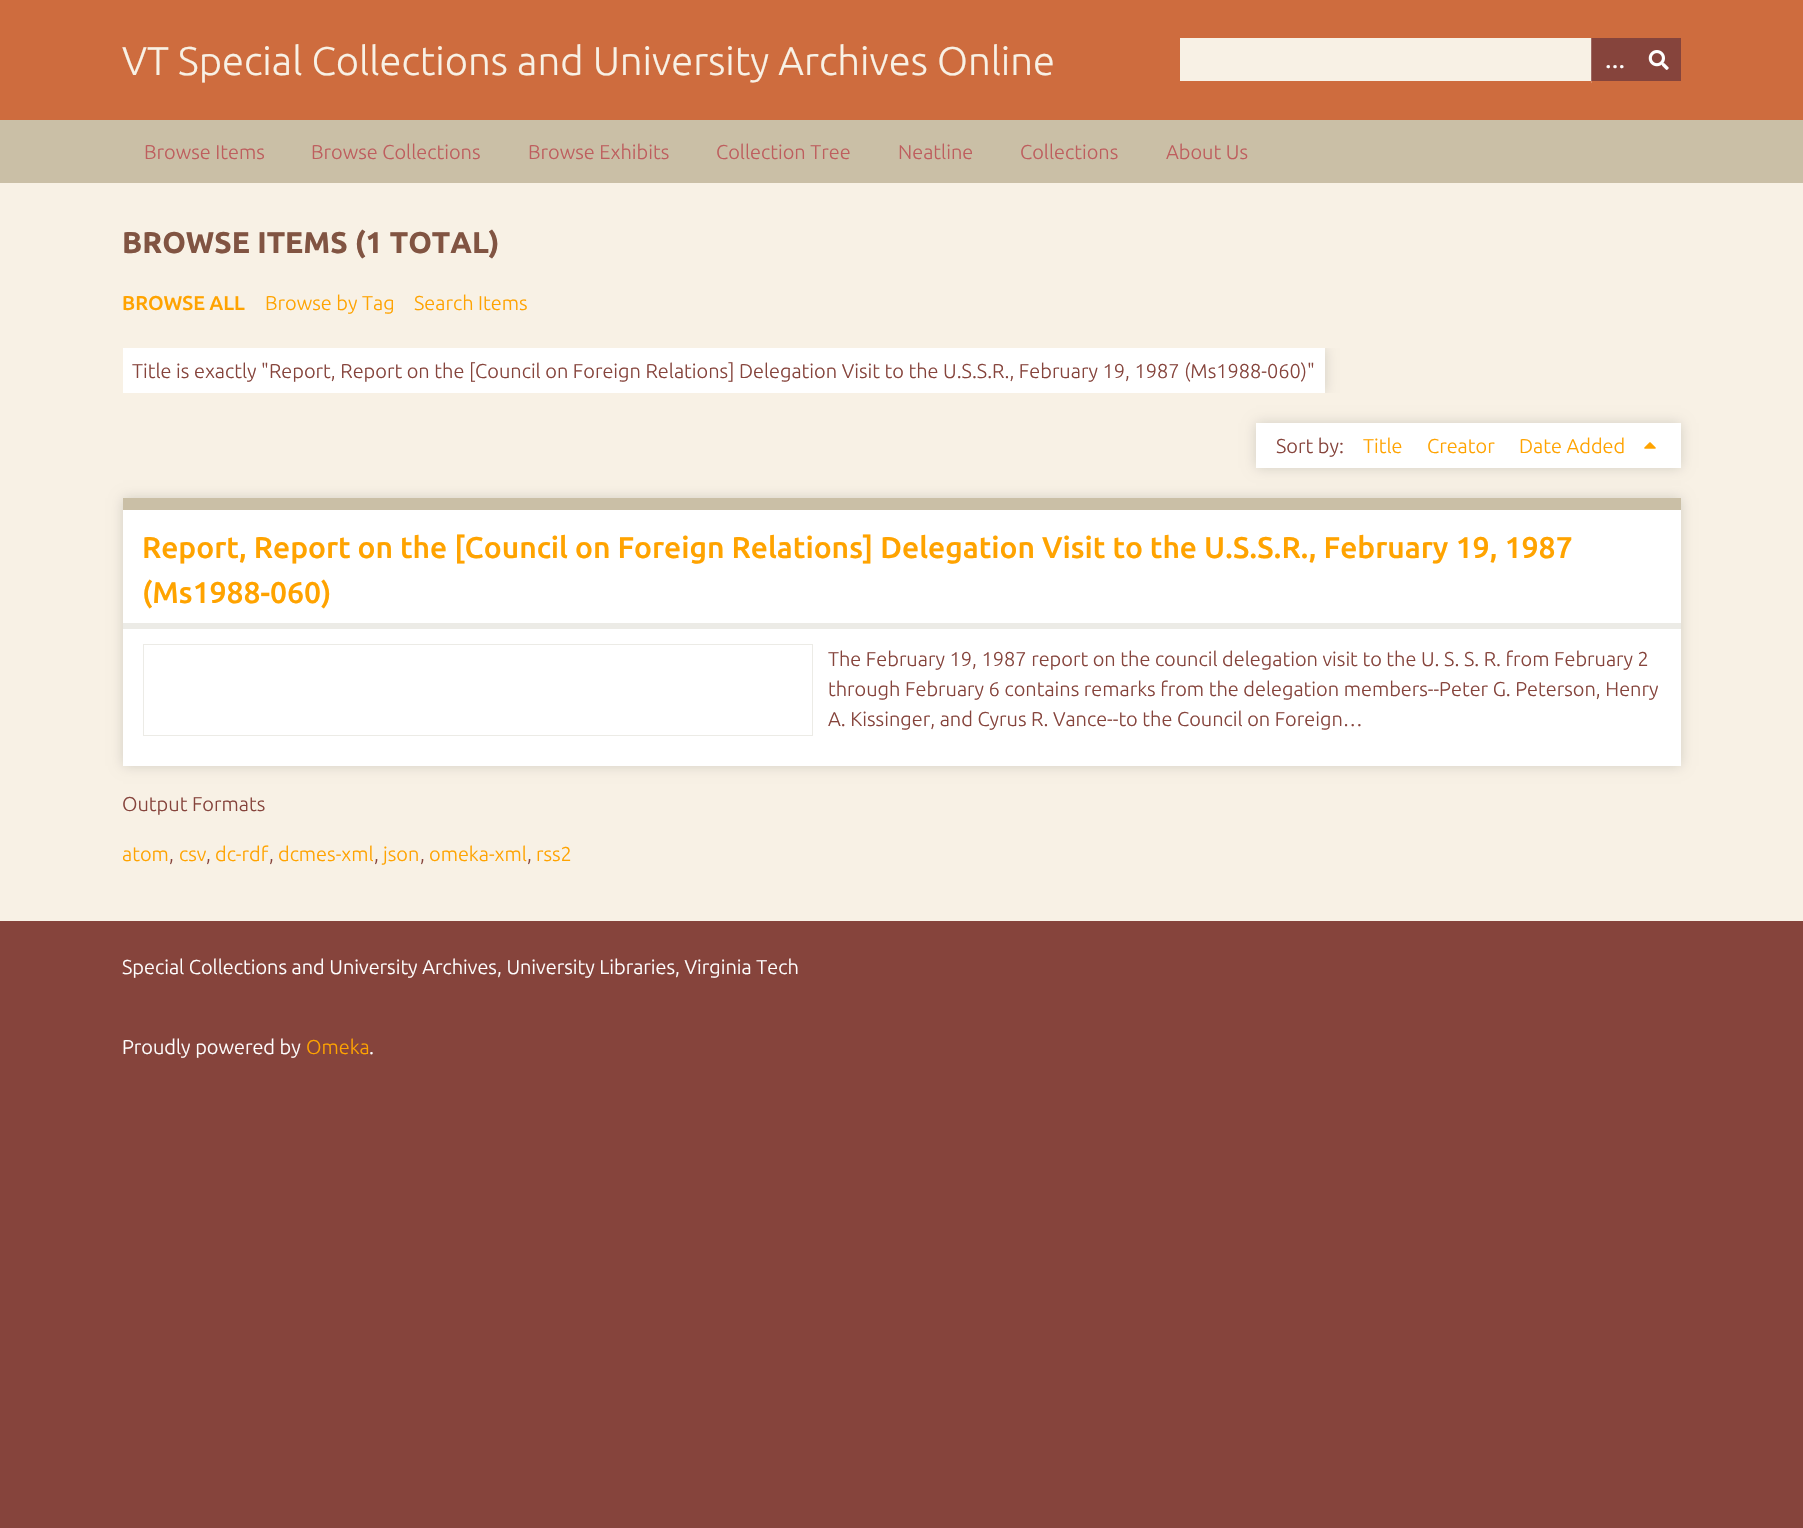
void draw(SkCanvas* canvas) {
  SkPaint paint;
  paint.setAntiAlias(true);
  auto face = [&](const char* family, int weight, float size, bool italic = false) {
    SkFontStyle style(weight, SkFontStyle::kNormal_Width,
      italic ? SkFontStyle::kItalic_Slant : SkFontStyle::kUpright_Slant);
    SkFont result(fontMgr->matchFamilyStyle(family, style), size);
    result.setSubpixel(true);
    return result;
  };
  auto paste = [&](const char* path, float x, float y, float w, float h) {
    auto image = SkImages::DeferredFromEncodedData(SkData::MakeFromFileName(path));
    canvas->drawImageRect(image, SkRect::MakeXYWH(x, y, w, h), SkSamplingOptions());
  };
  canvas->clear(0xff86443c);
  {
    const struct { float x, y, w, h; SkColor color; } items[] = {
      {0, 0, 1803, 120, 0xffce6c3e},
      {1591, 81, 1, 2, 0xffd88965},
      {1180, 38, 411, 43, 0xfff8f1e5},
      {1592, 38, 89, 43, 0xff86443c},
      {1591, 38, 1, 43, 0xff9e6963},
    };
    for (auto [x, y, w, h, color] : items) {
      paint.setColor(color);
      canvas->drawRect(SkRect::MakeXYWH(x, y, w, h), paint);
    }
  }
  paste("img/1.png", 1648, 50, 21, 20);
  paint.setColor(0xffcabfa6);
  canvas->drawRect(SkRect::MakeXYWH(0, 120, 1803, 63), paint);
  paint.setColor(0xfff8f1e5);
  canvas->drawRect(SkRect::MakeXYWH(0, 183, 1803, 738), paint);
  canvas->save();
  canvas->clipRect(SkRect::MakeXYWH(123, 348, 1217, 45));
  paint.setColor(0x26000000);
  paint.setMaskFilter(SkMaskFilter::MakeBlur(kNormal_SkBlurStyle, 6));
  canvas->drawRect(SkRect::MakeXYWH(123, 348, 1202, 45), paint);
  paint.setMaskFilter(nullptr);
  canvas->restore();
  paint.setColor(0xffffffff);
  canvas->drawRect(SkRect::MakeXYWH(123, 348, 1202, 45), paint);
  paint.setColor(0x26000000);
  paint.setMaskFilter(SkMaskFilter::MakeBlur(kNormal_SkBlurStyle, 6));
  canvas->drawRect(SkRect::MakeXYWH(1256, 423, 425, 45), paint);
  paint.setMaskFilter(nullptr);
  paint.setColor(0xffffffff);
  canvas->drawRect(SkRect::MakeXYWH(1256, 423, 425, 45), paint);
  paste("img/2.png", 1644, 442, 12, 7);
  paint.setColor(0x26000000);
  paint.setMaskFilter(SkMaskFilter::MakeBlur(kNormal_SkBlurStyle, 6));
  canvas->drawRect(SkRect::MakeXYWH(123, 498, 1558, 268), paint);
  paint.setMaskFilter(nullptr);
  {
    const struct { float x, y, w, h; SkColor color; } items[] = {
      {123, 510, 1558, 256, 0xffffffff},
      {123, 498, 1558, 12, 0xffcabfa6},
      {123, 623, 1558, 6, 0xffecebe6},
    };
    for (auto [x, y, w, h, color] : items) {
      paint.setColor(color);
      canvas->drawRect(SkRect::MakeXYWH(x, y, w, h), paint);
    }
  }
  paint.setStroke(true);
  paint.setStrokeWidth(1);
  canvas->drawRect(SkRect::MakeXYWH(143.5f, 644.5f, 669, 91), paint);
  auto f0 = face("Ubuntu", 300, 40);
  paint.setStroke(false);
  paint.setColor(0xfff8f1e5);
  canvas->drawString("VT Special Collections and University Archives Online", 122, 75, f0, paint);
  auto f1 = face("Liberation Serif", 700, 20);
  paint.setColor(0xffffffff);
  canvas->drawString("…", 1605, 68, f1, paint);
  auto f2 = face("Ubuntu", 300, 20);
  paint.setColor(0xffbe5e5e);
  {
    const struct { const char* s; float x, y; } items[] = {
      {"Browse Items", 144, 159},
      {"Browse Collections", 311, 159},
      {"Browse Exhibits", 528, 159},
      {"Collection Tree", 716, 159},
      {"Neatline", 898, 159},
      {"Collections", 1020, 159},
      {"About Us", 1166, 159},
    };
    for (auto [s, x, y] : items) {
      canvas->drawString(s, x, y, f2, paint);
    }
  }
  auto f3 = face("Ubuntu", 700, 30);
  paint.setColor(0xff815442);
  canvas->drawString("BROWSE ITEMS (1 TOTAL)", 122, 253, f3, paint);
  auto f4 = face("Ubuntu", 500, 20);
  paint.setColor(0xffffa300);
  canvas->drawString("BROWSE ALL", 122, 310, f4, paint);
  canvas->drawString("Browse by Tag", 265, 310, f2, paint);
  canvas->drawString("Search Items", 414, 310, f2, paint);
  paint.setColor(0xff86443c);
  canvas->drawString("Title is exactly \"Report, Report on the [Council on Foreign Relations] Delegation Visit to the U.S.S.R., February 19, 1987 (Ms1988-060)\"", 132, 378, f2, paint);
  canvas->drawString("Sort by:", 1276, 453, f2, paint);
  paint.setColor(0xffffa300);
  {
    const struct { const char* s; float x, y; } items[] = {
      {"Title", 1363, 453},
      {"Creator", 1427, 453},
      {"Date Added", 1519, 453},
    };
    for (auto [s, x, y] : items) {
      canvas->drawString(s, x, y, f2, paint);
    }
  }
  auto f5 = face("Ubuntu", 500, 30);
  canvas->drawString("Report, Report on the [Council on Foreign Relations] Delegation Visit to the U.S.S.R., February 19, 1987", 142, 558, f5, paint);
  canvas->drawString("(Ms1988-060)", 142, 603, f5, paint);
  paint.setColor(0xff86443c);
  {
    const struct { const char* s; float x, y; } items[] = {
      {"The February 19, 1987 report on the council delegation visit to the U. S. S. R. from February 2", 828, 666},
      {"through February 6 contains remarks from the delegation members--Peter G. Peterson, Henry", 828, 696},
      {"A. Kissinger, and Cyrus R. Vance--to the Council on Foreign…", 828, 726},
      {"Output Formats", 122, 811},
    };
    for (auto [s, x, y] : items) {
      canvas->drawString(s, x, y, f2, paint);
    }
  }
  paint.setColor(0xffffa300);
  canvas->drawString("atom", 122, 861, f2, paint);
  paint.setColor(0xff86443c);
  canvas->drawString(",", 169, 861, f2, paint);
  paint.setColor(0xffffa300);
  canvas->drawString("csv", 179, 861, f2, paint);
  paint.setColor(0xff86443c);
  canvas->drawString(",", 206, 861, f2, paint);
  paint.setColor(0xffffa300);
  canvas->drawString("dc-rdf", 215, 861, f2, paint);
  paint.setColor(0xff86443c);
  canvas->drawString(",", 269, 861, f2, paint);
  paint.setColor(0xffffa300);
  canvas->drawString("dcmes-xml", 278, 861, f2, paint);
  paint.setColor(0xff86443c);
  canvas->drawString(",", 374, 861, f2, paint);
  paint.setColor(0xffffa300);
  canvas->drawString("json", 383, 861, f2, paint);
  paint.setColor(0xff86443c);
  canvas->drawString(",", 420, 861, f2, paint);
  paint.setColor(0xffffa300);
  canvas->drawString("omeka-xml", 429, 861, f2, paint);
  paint.setColor(0xff86443c);
  canvas->drawString(",", 527, 861, f2, paint);
  paint.setColor(0xffffa300);
  canvas->drawString("rss2", 536, 861, f2, paint);
  paint.setColor(0xffffffff);
  canvas->drawString("Special Collections and University Archives, University Libraries, Virginia Tech", 122, 974, f2, paint);
  canvas->drawString("Proudly powered by", 122, 1054, f2, paint);
  paint.setColor(0xffffa300);
  canvas->drawString("Omeka", 306, 1054, f2, paint);
  paint.setColor(0xffffffff);
  canvas->drawString(".", 369, 1054, f2, paint);
}
